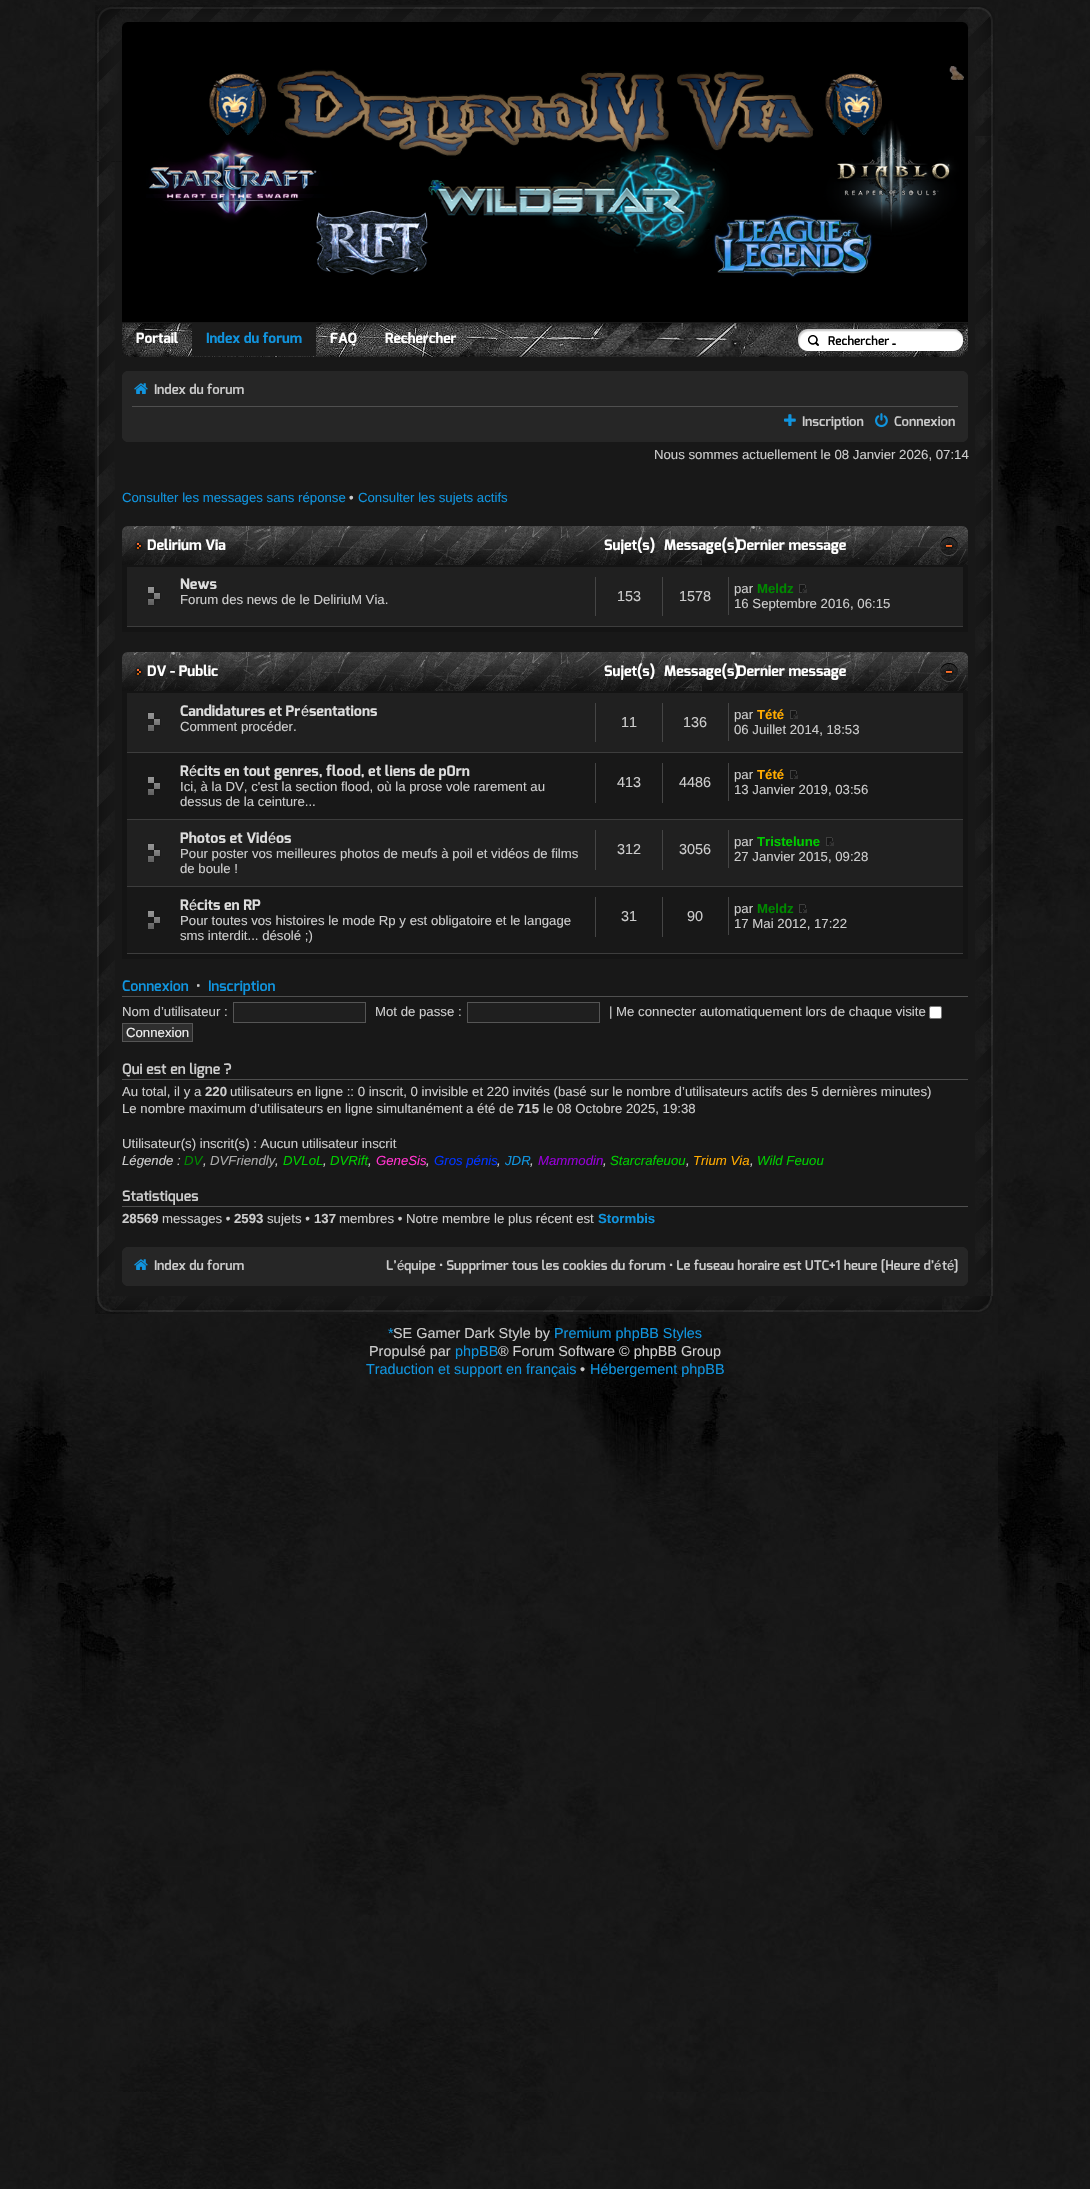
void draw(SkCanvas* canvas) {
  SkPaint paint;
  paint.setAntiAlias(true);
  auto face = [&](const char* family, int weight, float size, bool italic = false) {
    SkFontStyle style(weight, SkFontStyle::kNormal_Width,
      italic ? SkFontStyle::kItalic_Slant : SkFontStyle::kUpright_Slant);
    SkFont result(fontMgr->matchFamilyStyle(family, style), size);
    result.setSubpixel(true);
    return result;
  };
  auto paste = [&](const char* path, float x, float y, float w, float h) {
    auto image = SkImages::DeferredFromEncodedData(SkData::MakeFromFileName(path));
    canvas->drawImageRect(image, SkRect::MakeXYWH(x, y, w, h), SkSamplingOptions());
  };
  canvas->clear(0xffffffff);
  paste("img/1.png", 0, 1410, 1090, 779);
  paste("img/2.png", 0, 0, 1090, 1410);
  paint.setColor(0xff181818);
  canvas->drawRect(SkRect::MakeXYWH(95, 5, 900, 1309), paint);
  paste("img/3.png", 97, 162, 18, 1134);
  paste("img/4.png", 975, 136, 18, 1160);
  paste("img/5.png", 253, 7, 647, 15);
  paste("img/6.png", 95, 5, 158, 157);
  paste("img/7.png", 900, 5, 95, 131);
  paint.setColor(0xff000000);
  canvas->drawRect(SkRect::MakeXYWH(122, 22, 846, 300), paint);
  paste("img/8.png", 146, 66, 818, 212);
  paste("img/9.png", 122, 22, 5, 5);
  paste("img/10.png", 963, 22, 5, 5);
  paste("img/11.png", 122, 323, 846, 34);
  paint.setColor(0xff1b1b1b);
  canvas->drawRect(SkRect::MakeXYWH(192, 323, 124, 33), paint);
  paste("img/12.png", 798, 329, 165, 22);
  paste("img/13.png", 961, 349, 7, 8);
  paste("img/14.png", 123, 352, 4, 5);
  paint.setColor(0xff262626);
  canvas->drawRect(SkRect::MakeXYWH(122, 371, 846, 71), paint);
  paste("img/15.png", 122, 371, 4, 4);
  paste("img/16.png", 964, 371, 4, 4);
  paint.setColor(0xff4f4f4f);
  canvas->drawRect(SkRect::MakeXYWH(132, 406, 826, 1), paint);
  paste("img/17.png", 134, 383, 14, 11);
  paste("img/18.png", 784, 414, 12, 12);
  paste("img/19.png", 875, 413, 13, 15);
  paste("img/20.png", 122, 438, 4, 4);
  paste("img/21.png", 964, 438, 4, 4);
  paint.setColor(0xff141414);
  canvas->drawRect(SkRect::MakeXYWH(122, 565, 846, 67), paint);
  paste("img/22.png", 122, 526, 846, 39);
  paste("img/23.png", 122, 526, 5, 5);
  paste("img/24.png", 963, 526, 5, 5);
  paste("img/25.png", 135, 541, 8, 10);
  paste("img/26.png", 940, 537, 18, 19);
  paint.setColor(0xff202020);
  canvas->drawRect(SkRect::MakeXYWH(127, 567, 836, 59), paint);
  paint.setColor(0xff3d3d3d);
  canvas->drawRect(SkRect::MakeXYWH(127, 626, 836, 1), paint);
  paste("img/27.png", 147, 586, 14, 20);
  {
    const struct { float x, y, w, h; SkColor color; } items[] = {
      {595, 577, 1, 39, 0xff454545},
      {662, 577, 1, 39, 0xff454545},
      {728, 577, 1, 38, 0xff454545},
    };
    for (auto [x, y, w, h, color] : items) {
      paint.setColor(color);
      canvas->drawRect(SkRect::MakeXYWH(x, y, w, h), paint);
    }
  }
  paste("img/28.png", 799, 584, 8, 9);
  paint.setColor(0xff141414);
  canvas->drawRect(SkRect::MakeXYWH(122, 691, 846, 268), paint);
  paste("img/22.png", 122, 652, 846, 39);
  paste("img/23.png", 122, 652, 5, 5);
  paste("img/24.png", 963, 652, 5, 5);
  paste("img/25.png", 135, 667, 8, 10);
  paste("img/26.png", 940, 663, 18, 19);
  paint.setColor(0xff202020);
  canvas->drawRect(SkRect::MakeXYWH(127, 693, 836, 59), paint);
  paint.setColor(0xff3d3d3d);
  canvas->drawRect(SkRect::MakeXYWH(127, 752, 836, 1), paint);
  paste("img/27.png", 147, 712, 14, 20);
  {
    const struct { float x, y, w, h; SkColor color; } items[] = {
      {595, 703, 1, 39, 0xff454545},
      {662, 703, 1, 39, 0xff454545},
      {728, 703, 1, 38, 0xff454545},
    };
    for (auto [x, y, w, h, color] : items) {
      paint.setColor(color);
      canvas->drawRect(SkRect::MakeXYWH(x, y, w, h), paint);
    }
  }
  paste("img/28.png", 790, 710, 8, 9);
  paint.setColor(0xff181818);
  canvas->drawRect(SkRect::MakeXYWH(127, 753, 836, 66), paint);
  paint.setColor(0xff3d3d3d);
  canvas->drawRect(SkRect::MakeXYWH(127, 819, 836, 1), paint);
  paste("img/29.png", 148, 777, 12, 18);
  {
    const struct { float x, y, w, h; SkColor color; } items[] = {
      {595, 763, 1, 40, 0xff454545},
      {662, 763, 1, 40, 0xff454545},
      {728, 763, 1, 38, 0xff454545},
    };
    for (auto [x, y, w, h, color] : items) {
      paint.setColor(color);
      canvas->drawRect(SkRect::MakeXYWH(x, y, w, h), paint);
    }
  }
  paste("img/30.png", 790, 770, 8, 9);
  paint.setColor(0xff202020);
  canvas->drawRect(SkRect::MakeXYWH(127, 820, 836, 66), paint);
  paint.setColor(0xff3d3d3d);
  canvas->drawRect(SkRect::MakeXYWH(127, 886, 836, 1), paint);
  paste("img/27.png", 147, 843, 14, 20);
  {
    const struct { float x, y, w, h; SkColor color; } items[] = {
      {595, 830, 1, 40, 0xff454545},
      {662, 830, 1, 40, 0xff454545},
      {728, 830, 1, 38, 0xff454545},
    };
    for (auto [x, y, w, h, color] : items) {
      paint.setColor(color);
      canvas->drawRect(SkRect::MakeXYWH(x, y, w, h), paint);
    }
  }
  paste("img/28.png", 826, 837, 8, 9);
  paint.setColor(0xff181818);
  canvas->drawRect(SkRect::MakeXYWH(127, 887, 836, 66), paint);
  paint.setColor(0xff3d3d3d);
  canvas->drawRect(SkRect::MakeXYWH(127, 953, 836, 1), paint);
  paste("img/29.png", 148, 911, 12, 18);
  {
    const struct { float x, y, w, h; SkColor color; } items[] = {
      {595, 897, 1, 40, 0xff454545},
      {662, 897, 1, 40, 0xff454545},
      {728, 897, 1, 38, 0xff454545},
    };
    for (auto [x, y, w, h, color] : items) {
      paint.setColor(color);
      canvas->drawRect(SkRect::MakeXYWH(x, y, w, h), paint);
    }
  }
  paste("img/30.png", 799, 904, 8, 9);
  paint.setColor(0xff4f4f4f);
  canvas->drawRect(SkRect::MakeXYWH(122, 996, 846, 1), paint);
  paint.setColor(0xff1f1f1f);
  canvas->drawRect(SkRect::MakeXYWH(233.5f, 1002.5f, 132, 20), paint);
  paint.setStroke(true);
  paint.setStrokeWidth(1);
  paint.setColor(0xff555555);
  canvas->drawRect(SkRect::MakeXYWH(233.5f, 1002.5f, 132, 20), paint);
  paint.setStroke(false);
  paint.setColor(0xff1f1f1f);
  canvas->drawRect(SkRect::MakeXYWH(467.5f, 1002.5f, 132, 20), paint);
  paint.setStroke(true);
  paint.setColor(0xff555555);
  canvas->drawRect(SkRect::MakeXYWH(467.5f, 1002.5f, 132, 20), paint);
  paint.setStroke(false);
  paint.setColor(0xffffffff);
  canvas->drawRoundRect(SkRect::MakeXYWH(929.5f, 1006.5f, 12, 12), 1.5f, 1.5f, paint);
  paint.setStroke(true);
  paint.setColor(0xff767676);
  canvas->drawRoundRect(SkRect::MakeXYWH(929.5f, 1006.5f, 12, 12), 1.5f, 1.5f, paint);
  paint.setStroke(false);
  paint.setColor(0xff2e2e2e);
  canvas->drawRect(SkRect::MakeXYWH(122.5f, 1023.5f, 70, 18), paint);
  paint.setStroke(true);
  paint.setColor(0xff555555);
  canvas->drawRect(SkRect::MakeXYWH(122.5f, 1023.5f, 70, 18), paint);
  paint.setStroke(false);
  {
    const struct { float x, y, w, h; SkColor color; } items[] = {
      {122, 1079, 846, 1, 0xff4f4f4f},
      {122, 1206, 846, 1, 0xff4f4f4f},
      {122, 1247, 846, 39, 0xff262626},
    };
    for (auto [x, y, w, h, color] : items) {
      paint.setColor(color);
      canvas->drawRect(SkRect::MakeXYWH(x, y, w, h), paint);
    }
  }
  paste("img/15.png", 122, 1247, 4, 4);
  paste("img/16.png", 964, 1247, 4, 4);
  paste("img/17.png", 134, 1259, 14, 11);
  paste("img/20.png", 122, 1282, 4, 4);
  paste("img/21.png", 964, 1282, 4, 4);
  paste("img/31.png", 148, 1296, 794, 16);
  paste("img/32.png", 95, 1296, 53, 18);
  paste("img/33.png", 942, 1296, 53, 18);
  auto f0 = face("Exo", 700, 14);
  paint.setColor(0xffffffff);
  canvas->drawString("Portail", 136, 343, f0, paint);
  paint.setColor(0xff1094de);
  canvas->drawString("Index du forum", 206, 343, f0, paint);
  paint.setColor(0xffffffff);
  canvas->drawString("FAQ", 330, 343, f0, paint);
  canvas->drawString("Rechercher", 385, 343, f0, paint);
  auto f1 = face("Exo", 600, 12);
  paint.setColor(0xff000000);
  canvas->drawString("Rechercher…", 828, 345, f1, paint);
  auto f2 = face("Exo", 600, 13.2f);
  paint.setColor(0xffcccccc);
  {
    const struct { const char* s; float x, y; } items[] = {
      {"Index du forum", 154, 394},
      {"Inscription", 802, 426},
      {"Connexion", 894, 426},
    };
    for (auto [s, x, y] : items) {
      canvas->drawString(s, x, y, f2, paint);
    }
  }
  auto f3 = face("Liberation Sans", 400, 13.2f);
  canvas->drawString("Nous sommes actuellement le 08 Janvier 2026, 07:14", 654, 459, f3, paint);
  paint.setColor(0xff1094de);
  canvas->drawString("Consulter les messages sans réponse", 122, 502, f3, paint);
  paint.setColor(0xffcccccc);
  canvas->drawString("•", 349, 502, f3, paint);
  paint.setColor(0xff1094de);
  canvas->drawString("Consulter les sujets actifs", 358, 502, f3, paint);
  auto f4 = face("Exo", 700, 14.4f);
  paint.setColor(0xffffffff);
  {
    const struct { const char* s; float x, y; } items[] = {
      {"Delirium Via", 147, 550},
      {"Sujet(s)", 604, 550},
      {"Message(s)", 664, 550},
      {"Dernier message", 737, 550},
    };
    for (auto [s, x, y] : items) {
      canvas->drawString(s, x, y, f4, paint);
    }
  }
  auto f5 = face("Exo", 700, 14.5f);
  paint.setColor(0xffdddddd);
  canvas->drawString("News", 180, 589, f5, paint);
  paint.setColor(0xffcccccc);
  canvas->drawString("Forum des news de le DeliriuM Via.", 180, 604, f3, paint);
  auto f6 = face("Liberation Sans", 400, 14.4f);
  canvas->drawString("153", 617, 601, f6, paint);
  canvas->drawString("1578", 679, 601, f6, paint);
  canvas->drawString("par", 734, 593, f3, paint);
  auto f7 = face("Liberation Sans", 700, 13.2f);
  paint.setColor(0xff008800);
  canvas->drawString("Meldz", 757, 593, f7, paint);
  paint.setColor(0xffcccccc);
  canvas->drawString("16 Septembre 2016, 06:15", 734, 608, f3, paint);
  paint.setColor(0xffffffff);
  {
    const struct { const char* s; float x, y; } items[] = {
      {"DV - Public", 147, 676},
      {"Sujet(s)", 604, 676},
      {"Message(s)", 664, 676},
      {"Dernier message", 737, 676},
    };
    for (auto [s, x, y] : items) {
      canvas->drawString(s, x, y, f4, paint);
    }
  }
  paint.setColor(0xffdddddd);
  canvas->drawString("Candidatures et Pr", 180, 716, f5, paint);
  auto f8 = face("Liberation Sans", 400, 14.5f);
  canvas->drawString("é", 301, 716, f8, paint);
  canvas->drawString("sentations", 309, 716, f5, paint);
  paint.setColor(0xffcccccc);
  canvas->drawString("Comment procéder.", 180, 731, f3, paint);
  canvas->drawString("11", 621, 727, f6, paint);
  canvas->drawString("136", 683, 727, f6, paint);
  canvas->drawString("par", 734, 719, f3, paint);
  paint.setColor(0xffffaa00);
  canvas->drawString("Tété", 757, 719, f7, paint);
  paint.setColor(0xffcccccc);
  canvas->drawString("06 Juillet 2014, 18:53", 734, 734, f3, paint);
  paint.setColor(0xffdddddd);
  canvas->drawString("R", 180, 776, f5, paint);
  canvas->drawString("é", 189, 776, f8, paint);
  canvas->drawString("cits en tout genres, flood, et liens de p0rn", 197, 776, f5, paint);
  paint.setColor(0xffcccccc);
  canvas->drawString("Ici, à la DV, c'est la section flood, où la prose vole rarement au", 180, 791, f3, paint);
  canvas->drawString("dessus de la ceinture...", 180, 806, f3, paint);
  canvas->drawString("413", 617, 787, f6, paint);
  canvas->drawString("4486", 679, 787, f6, paint);
  canvas->drawString("par", 734, 779, f3, paint);
  paint.setColor(0xffffaa00);
  canvas->drawString("Tété", 757, 779, f7, paint);
  paint.setColor(0xffcccccc);
  canvas->drawString("13 Janvier 2019, 03:56", 734, 794, f3, paint);
  paint.setColor(0xffdddddd);
  canvas->drawString("Photos et Vid", 180, 843, f5, paint);
  canvas->drawString("é", 268, 843, f8, paint);
  canvas->drawString("os", 276, 843, f5, paint);
  paint.setColor(0xffcccccc);
  canvas->drawString("Pour poster vos meilleures photos de meufs à poil et vidéos de films", 180, 858, f3, paint);
  canvas->drawString("de boule !", 180, 873, f3, paint);
  canvas->drawString("312", 617, 854, f6, paint);
  canvas->drawString("3056", 679, 854, f6, paint);
  canvas->drawString("par", 734, 846, f3, paint);
  paint.setColor(0xff00cc00);
  canvas->drawString("Tristelune", 757, 846, f7, paint);
  paint.setColor(0xffcccccc);
  canvas->drawString("27 Janvier 2015, 09:28", 734, 861, f3, paint);
  paint.setColor(0xffdddddd);
  canvas->drawString("R", 180, 910, f5, paint);
  canvas->drawString("é", 189, 910, f8, paint);
  canvas->drawString("cits en RP", 197, 910, f5, paint);
  paint.setColor(0xffcccccc);
  canvas->drawString("Pour toutes vos histoires le mode Rp y est obligatoire et le langage", 180, 925, f3, paint);
  canvas->drawString("sms interdit... désolé ;)", 180, 940, f3, paint);
  canvas->drawString("31", 621, 921, f6, paint);
  canvas->drawString("90", 687, 921, f6, paint);
  canvas->drawString("par", 734, 913, f3, paint);
  paint.setColor(0xff008800);
  canvas->drawString("Meldz", 757, 913, f7, paint);
  paint.setColor(0xffcccccc);
  canvas->drawString("17 Mai 2012, 17:22", 734, 928, f3, paint);
  auto f9 = face("Exo", 600, 14.4f);
  paint.setColor(0xff1094de);
  canvas->drawString("Connexion", 122, 991, f9, paint);
  paint.setColor(0xffcccccc);
  canvas->drawString("•", 196, 991, f9, paint);
  paint.setColor(0xff1094de);
  canvas->drawString("Inscription", 208, 991, f9, paint);
  paint.setColor(0xffcccccc);
  {
    const struct { const char* s; float x, y; } items[] = {
      {"Nom d’utilisateur :", 122, 1016},
      {"Mot de passe :", 375, 1016},
      {"| Me connecter automatiquement lors de chaque visite", 609, 1016},
    };
    for (auto [s, x, y] : items) {
      canvas->drawString(s, x, y, f3, paint);
    }
  }
  paint.setColor(0xfff0f0f0);
  canvas->drawString("Connexion", 126, 1037, f3, paint);
  paint.setColor(0xffcccccc);
  canvas->drawString("Qui est en ligne ?", 122, 1074, f9, paint);
  canvas->drawString("Au total, il y a", 122, 1096, f3, paint);
  canvas->drawString("220", 205, 1096, f7, paint);
  canvas->drawString("utilisateurs en ligne :: 0 inscrit, 0 invisible et 220 invités (basé sur le nombre d’utilisateurs actifs des 5 dernières minutes)", 230, 1096, f3, paint);
  canvas->drawString("Le nombre maximum d’utilisateurs en ligne simultanément a été de", 122, 1113, f3, paint);
  canvas->drawString("715", 517, 1113, f7, paint);
  canvas->drawString("le 08 Octobre 2025, 19:38", 543, 1113, f3, paint);
  canvas->drawString("Utilisateur(s) inscrit(s) : Aucun utilisateur inscrit", 122, 1148, f3, paint);
  auto f10 = face("Liberation Sans", 400, 13.2f, true);
  canvas->drawString("Légende :", 122, 1165, f10, paint);
  paint.setColor(0xff008800);
  canvas->drawString("DV", 184, 1165, f10, paint);
  paint.setColor(0xffaaaaaa);
  canvas->drawString("DVFriendly", 210, 1165, f10, paint);
  paint.setColor(0xff00cc00);
  canvas->drawString("DVLoL", 283, 1165, f10, paint);
  canvas->drawString("DVRift", 330, 1165, f10, paint);
  paint.setColor(0xffff33cc);
  canvas->drawString("GeneSis", 376, 1165, f10, paint);
  paint.setColor(0xff0033ff);
  canvas->drawString("Gros pénis", 434, 1165, f10, paint);
  paint.setColor(0xff1094de);
  canvas->drawString("JDR", 505, 1165, f10, paint);
  paint.setColor(0xff9400d4);
  canvas->drawString("Mammodin", 538, 1165, f10, paint);
  paint.setColor(0xff00cc00);
  canvas->drawString("Starcrafeuou", 610, 1165, f10, paint);
  paint.setColor(0xffffaa00);
  canvas->drawString("Trium Via", 693, 1165, f10, paint);
  paint.setColor(0xff00cc00);
  canvas->drawString("Wild Feuou", 757, 1165, f10, paint);
  paint.setColor(0xffcccccc);
  {
    const struct { const char* s; float x, y; } items[] = {
      {",", 203, 1165},
      {",", 275, 1165},
      {",", 323, 1165},
      {",", 368, 1165},
      {",", 426, 1165},
      {",", 497, 1165},
      {",", 530, 1165},
      {",", 603, 1165},
      {",", 686, 1165},
      {",", 750, 1165},
    };
    for (auto [s, x, y] : items) {
      canvas->drawString(s, x, y, f10, paint);
    }
  }
  canvas->drawString("Statistiques", 122, 1201, f9, paint);
  canvas->drawString("28569", 122, 1223, f7, paint);
  canvas->drawString("messages •", 162, 1223, f3, paint);
  canvas->drawString("2593", 234, 1223, f7, paint);
  canvas->drawString("sujets •", 267, 1223, f3, paint);
  canvas->drawString("137", 314, 1223, f7, paint);
  canvas->drawString("membres • Notre membre le plus récent est", 339, 1223, f3, paint);
  paint.setColor(0xff1094de);
  canvas->drawString("Stormbis", 598, 1223, f7, paint);
  paint.setColor(0xffcccccc);
  canvas->drawString("Index du forum", 154, 1270, f2, paint);
  canvas->drawString("L’", 386, 1270, f2, paint);
  canvas->drawString("é", 397, 1270, f3, paint);
  canvas->drawString("quipe • Supprimer tous les cookies du forum • Le fuseau horaire est UTC+1 heure [Heure d’", 404, 1270, f2, paint);
  canvas->drawString("é", 934, 1270, f3, paint);
  canvas->drawString("t", 942, 1270, f2, paint);
  canvas->drawString("é", 947, 1270, f3, paint);
  canvas->drawString("]", 954, 1270, f2, paint);
  paint.setColor(0xff1094de);
  canvas->drawString("*", 388, 1338, f6, paint);
  paint.setColor(0xffcccccc);
  canvas->drawString("SE Gamer Dark Style by", 393, 1338, f6, paint);
  paint.setColor(0xff1094de);
  canvas->drawString("Premium phpBB Styles", 554, 1338, f6, paint);
  paint.setColor(0xffcccccc);
  canvas->drawString("Propulsé par", 369, 1356, f6, paint);
  paint.setColor(0xff1094de);
  canvas->drawString("phpBB", 455, 1356, f6, paint);
  paint.setColor(0xffcccccc);
  canvas->drawString("® Forum Software © phpBB Group", 498, 1356, f6, paint);
  paint.setColor(0xff1094de);
  canvas->drawString("Traduction et support en français", 366, 1374, f6, paint);
  paint.setColor(0xffcccccc);
  canvas->drawString("•", 580, 1374, f6, paint);
  paint.setColor(0xff1094de);
  canvas->drawString("Hébergement phpBB", 590, 1374, f6, paint);
}
